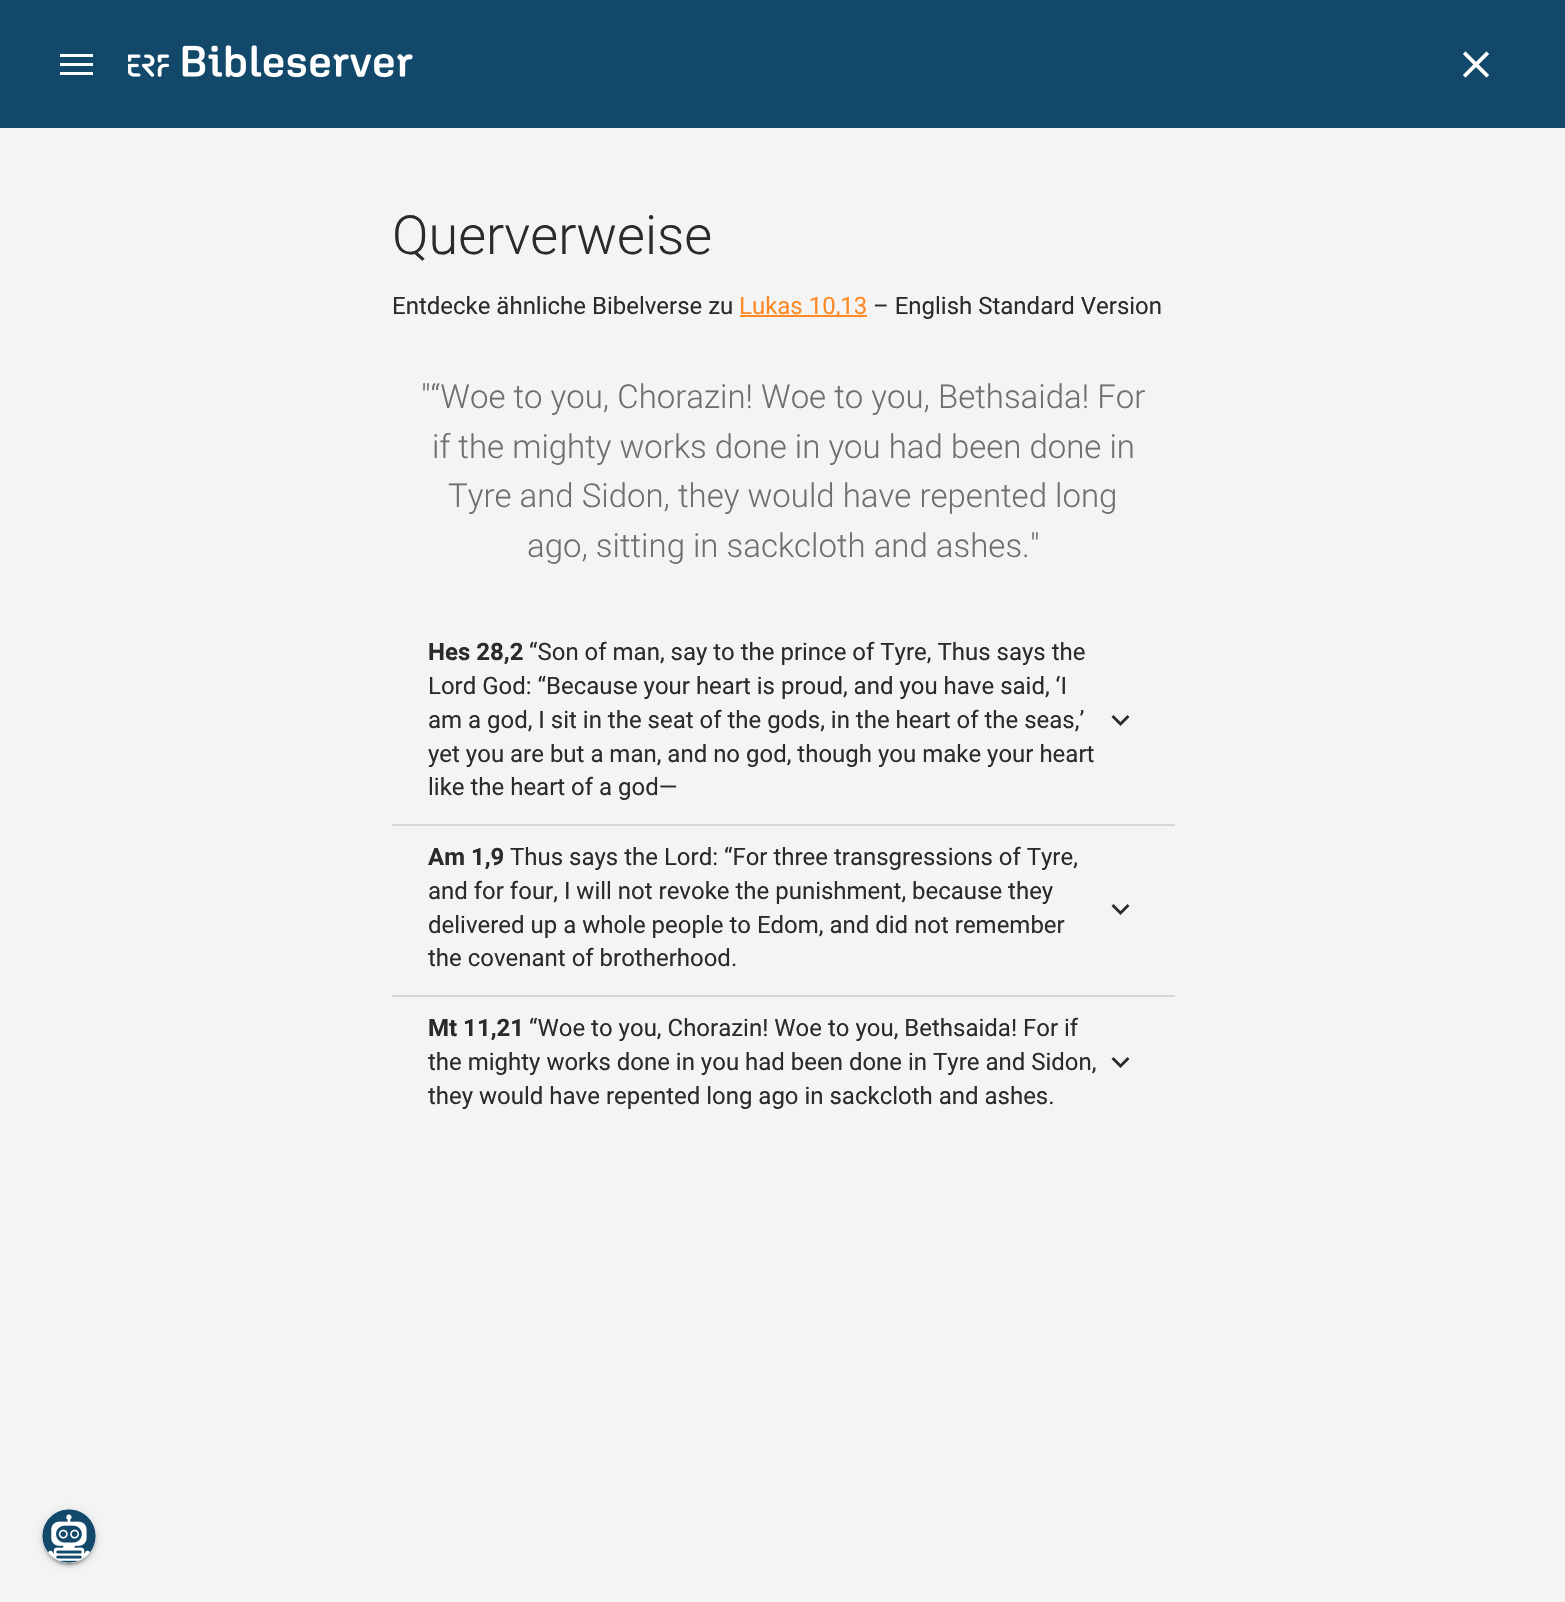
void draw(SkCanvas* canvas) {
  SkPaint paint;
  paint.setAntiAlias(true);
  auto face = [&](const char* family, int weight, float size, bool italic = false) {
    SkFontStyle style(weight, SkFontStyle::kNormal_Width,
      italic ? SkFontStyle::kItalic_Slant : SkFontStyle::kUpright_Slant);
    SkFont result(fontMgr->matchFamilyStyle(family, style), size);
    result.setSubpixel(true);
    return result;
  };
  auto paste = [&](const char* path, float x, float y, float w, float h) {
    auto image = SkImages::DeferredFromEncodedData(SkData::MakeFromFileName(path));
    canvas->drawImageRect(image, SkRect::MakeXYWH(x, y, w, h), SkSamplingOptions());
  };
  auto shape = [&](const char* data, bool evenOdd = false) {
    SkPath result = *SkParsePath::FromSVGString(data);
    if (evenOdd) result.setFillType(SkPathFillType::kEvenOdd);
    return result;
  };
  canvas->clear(0xfff4f4f4);
  paint.setColor(0xff12496a);
  canvas->drawRect(SkRect::MakeXYWH(0, 0, 1565, 128), paint);
  paste("img/1.png", 1463, 51, 26, 27);
  {
    const struct { float x, y, w, h; SkColor color; } items[] = {
      {60, 54, 33, 3, 0xffffffff},
      {60, 63, 33, 3, 0xffffffff},
      {60, 72, 33, 3, 0xffffffff},
    };
    for (auto [x, y, w, h, color] : items) {
      paint.setColor(color);
      canvas->drawRect(SkRect::MakeXYWH(x, y, w, h), paint);
    }
  }
  paste("img/2.png", 128, 45, 285, 33);
  paint.setColor(0xfffd8a24);
  canvas->drawRect(SkRect::MakeXYWH(740, 315, 127, 2), paint);
  paint.setColor(0xff2b2b2b);
  canvas->drawPath(shape("M1113.5 715L1120.5 722L1127.5 715L1129.5 717L1120.5 726L1111.5 717Z"), paint);
  paint.setColor(0xffd7d7d7);
  canvas->drawRect(SkRect::MakeXYWH(392, 824, 783, 2), paint);
  paint.setColor(0xff2b2b2b);
  canvas->drawPath(shape("M1113.5 904L1120.5 911L1127.5 904L1129.5 906L1120.5 915L1111.5 906Z"), paint);
  paint.setColor(0xffd7d7d7);
  canvas->drawRect(SkRect::MakeXYWH(392, 995, 783, 2), paint);
  paint.setColor(0xff2b2b2b);
  canvas->drawPath(shape("M1113.5 1057L1120.5 1064L1127.5 1057L1129.5 1059L1120.5 1068L1111.5 1059Z"), paint);
  paint.setColor(0x1f000000);
  paint.setMaskFilter(SkMaskFilter::MakeBlur(kNormal_SkBlurStyle, 4));
  canvas->drawRoundRect(SkRect::MakeXYWH(42, 1511, 54, 54), 27, 27, paint);
  paint.setMaskFilter(nullptr);
  paint.setColor(0x24000000);
  paint.setMaskFilter(SkMaskFilter::MakeBlur(kNormal_SkBlurStyle, 1.5f));
  canvas->drawRoundRect(SkRect::MakeXYWH(42, 1512, 54, 54), 27, 27, paint);
  paint.setMaskFilter(nullptr);
  paint.setColor(0x33000000);
  paint.setMaskFilter(SkMaskFilter::MakeBlur(kNormal_SkBlurStyle, 1));
  canvas->drawRoundRect(SkRect::MakeXYWH(45, 1517, 48, 48), 24, 24, paint);
  paint.setMaskFilter(nullptr);
  paint.setColor(0xffffffff);
  canvas->drawCircle(69, 1536, 27, paint);
  paste("img/3.png", 42, 1509, 54, 54);
  auto f0 = face("Roboto", 300, 54);
  paint.setColor(0xff2b2b2b);
  canvas->drawString("Querverweise", 392, 254, f0, paint);
  auto f1 = face("Roboto", 400, 24);
  canvas->drawString("Entdecke ähnliche Bibelverse zu", 392, 314, f1, paint);
  paint.setColor(0xfffd8a24);
  canvas->drawString("Lukas 10,13", 739, 314, f1, paint);
  paint.setColor(0xff2b2b2b);
  canvas->drawString("– English Standard Version", 873, 314, f1, paint);
  auto f2 = face("Roboto", 300, 33);
  paint.setColor(0xff6f6f6f);
  {
    const struct { const char* s; float x, y; } items[] = {
      {"\"“Woe to you, Chorazin! Woe to you, Bethsaida! For", 421, 408},
      {"if the mighty works done in you had been done in", 432, 458},
      {"Tyre and Sidon, they would have repented long", 448, 507},
      {"ago, sitting in sackcloth and ashes.\"", 527, 557},
    };
    for (auto [s, x, y] : items) {
      canvas->drawString(s, x, y, f2, paint);
    }
  }
  auto f3 = face("Roboto", 700, 24);
  paint.setColor(0xff2b2b2b);
  canvas->drawString("Hes 28,2", 428, 660, f3, paint);
  {
    const struct { const char* s; float x, y; } items[] = {
      {"“Son of man, say to the prince of Tyre, Thus says the", 529, 660},
      {"Lord God: “Because your heart is proud, and you have said, ‘I", 428, 694},
      {"am a god, I sit in the seat of the gods, in the heart of the seas,’", 428, 728},
      {"yet you are but a man, and no god, though you make your heart", 428, 762},
      {"like the heart of a god—", 428, 795},
    };
    for (auto [s, x, y] : items) {
      canvas->drawString(s, x, y, f1, paint);
    }
  }
  canvas->drawString("Am 1,9", 428, 865, f3, paint);
  {
    const struct { const char* s; float x, y; } items[] = {
      {"Thus says the Lord: “For three transgressions of Tyre,", 510, 865},
      {"and for four, I will not revoke the punishment, because they", 428, 899},
      {"delivered up a whole people to Edom, and did not remember", 428, 933},
      {"the covenant of brotherhood.", 428, 966},
    };
    for (auto [s, x, y] : items) {
      canvas->drawString(s, x, y, f1, paint);
    }
  }
  canvas->drawString("Mt 11,21", 428, 1036, f3, paint);
  {
    const struct { const char* s; float x, y; } items[] = {
      {"“Woe to you, Chorazin! Woe to you, Bethsaida! For if", 529, 1036},
      {"the mighty works done in you had been done in Tyre and Sidon,", 428, 1070},
      {"they would have repented long ago in sackcloth and ashes.", 428, 1104},
    };
    for (auto [s, x, y] : items) {
      canvas->drawString(s, x, y, f1, paint);
    }
  }
}
